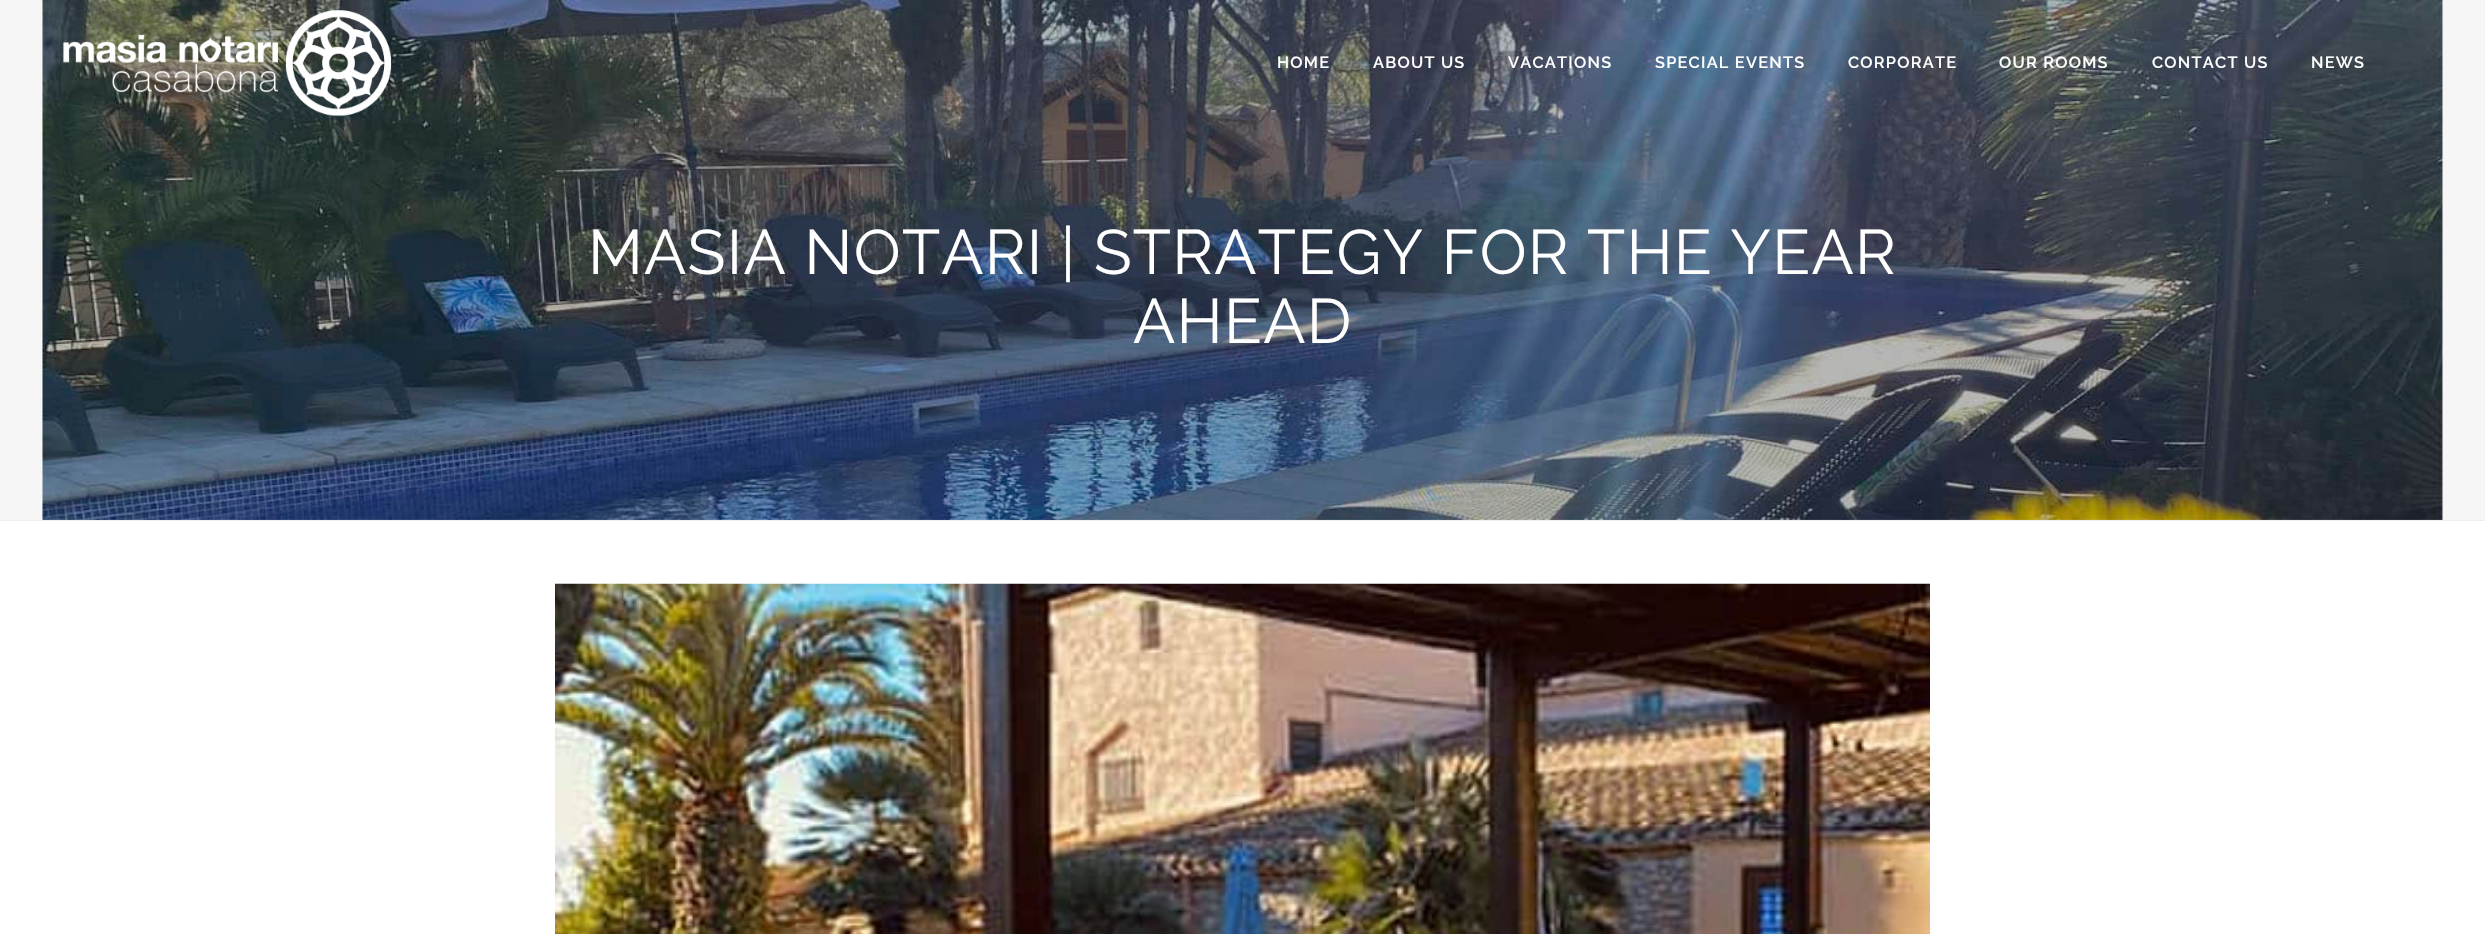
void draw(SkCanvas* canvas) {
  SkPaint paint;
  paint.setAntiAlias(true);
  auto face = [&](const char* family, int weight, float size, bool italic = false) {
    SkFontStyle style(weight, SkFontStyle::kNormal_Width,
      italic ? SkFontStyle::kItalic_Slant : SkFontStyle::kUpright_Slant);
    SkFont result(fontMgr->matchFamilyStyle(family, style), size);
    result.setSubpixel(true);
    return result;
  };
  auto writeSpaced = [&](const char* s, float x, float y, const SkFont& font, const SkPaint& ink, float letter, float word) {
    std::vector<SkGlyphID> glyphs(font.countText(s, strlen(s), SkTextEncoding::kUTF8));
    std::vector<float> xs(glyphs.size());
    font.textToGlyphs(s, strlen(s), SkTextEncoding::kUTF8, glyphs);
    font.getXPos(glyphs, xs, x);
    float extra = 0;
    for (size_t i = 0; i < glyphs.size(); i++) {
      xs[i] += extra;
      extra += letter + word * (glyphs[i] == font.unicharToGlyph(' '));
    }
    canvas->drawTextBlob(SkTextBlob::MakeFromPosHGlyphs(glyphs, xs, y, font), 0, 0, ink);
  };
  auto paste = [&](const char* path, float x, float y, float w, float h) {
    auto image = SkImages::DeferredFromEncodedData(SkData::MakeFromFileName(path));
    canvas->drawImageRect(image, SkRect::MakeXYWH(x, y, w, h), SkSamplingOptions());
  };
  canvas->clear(0xffffffff);
  paint.setColor(0xfff6f6f6);
  canvas->drawRect(SkRect::MakeXYWH(0, 0, 2485, 520), paint);
  paste("img/2.png", 42, 0, 2401, 520);
  paste("img/1.png", 63, 10, 329, 107);
  paint.setColor(0xffeeeeee);
  canvas->drawRect(SkRect::MakeXYWH(0, 520, 2485, 1), paint);
  paste("img/3.png", 555, 583, 1375, 351);
  auto f0 = face("Raleway", 600, 16.25f);
  paint.setColor(0xffffffff);
  {
    const struct { const char* s; float x, y; } items[] = {
      {"HOME", 1277, 68},
      {"ABOUT US", 1373, 68},
      {"VACATIONS", 1508, 68},
      {"SPECIAL EVENTS", 1655, 68},
      {"CORPORATE", 1848, 68},
      {"OUR ROOMS", 1999, 68},
      {"CONTACT US", 2152, 68},
      {"NEWS", 2311, 68},
    };
    for (auto [s, x, y] : items) {
      writeSpaced(s, x, y, f0, paint, 1.25f, 0);
    }
  }
  auto f1 = face("Raleway", 400, 62.5f);
  writeSpaced("MASIA NOTARI | STRATEGY FOR THE YEAR", 588, 274, f1, paint, 1.25f, 0);
  writeSpaced("AHEAD", 1133, 343, f1, paint, 1.25f, 0);
}
